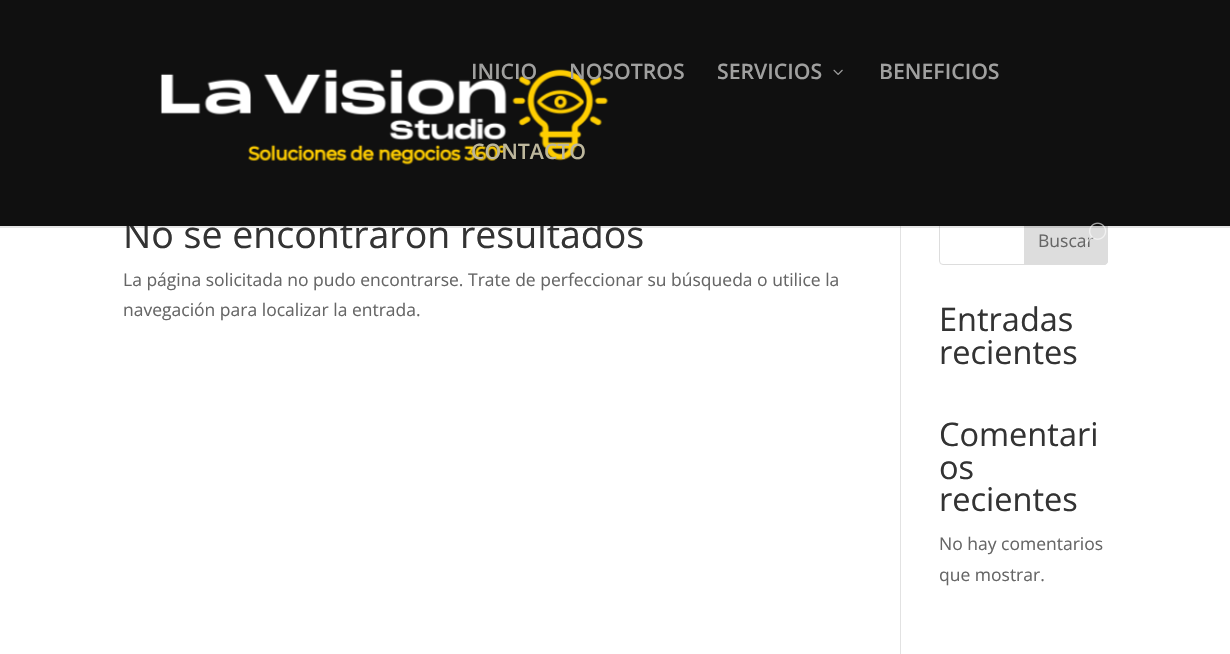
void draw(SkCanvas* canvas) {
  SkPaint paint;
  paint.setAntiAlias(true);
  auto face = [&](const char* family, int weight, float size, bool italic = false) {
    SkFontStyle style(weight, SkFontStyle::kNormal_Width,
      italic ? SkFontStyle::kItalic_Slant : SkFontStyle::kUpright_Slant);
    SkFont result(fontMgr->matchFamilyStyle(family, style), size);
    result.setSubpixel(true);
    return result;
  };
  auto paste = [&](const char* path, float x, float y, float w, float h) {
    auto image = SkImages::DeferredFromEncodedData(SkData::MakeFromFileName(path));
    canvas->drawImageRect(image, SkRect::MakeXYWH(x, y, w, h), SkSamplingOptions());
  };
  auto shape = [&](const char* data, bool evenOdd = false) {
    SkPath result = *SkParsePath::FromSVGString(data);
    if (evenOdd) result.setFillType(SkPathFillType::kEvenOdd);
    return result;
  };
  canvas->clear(0xffffffff);
  paint.setStroke(true);
  paint.setStrokeWidth(1);
  paint.setColor(0xffdddddd);
  canvas->drawRoundRect(SkRect::MakeXYWH(939.5f, 215.5f, 168, 49), 3.5f, 3.5f, paint);
  paint.setStroke(false);
  canvas->drawPath(shape("M1024.5 215.5H1104C1106 215.5 1107.5 217 1107.5 219V261C1107.5 263 1106 264.5 1104 264.5H1024.5Z"), paint);
  paint.setStroke(true);
  canvas->drawPath(shape("M1024.5 215.5H1104C1106 215.5 1107.5 217 1107.5 219V261C1107.5 263 1106 264.5 1104 264.5H1024.5Z"), paint);
  paint.setStroke(false);
  paint.setColor(0xffe2e2e2);
  canvas->drawRect(SkRect::MakeXYWH(900, 226, 1, 428), paint);
  paint.setColor(0x1a000000);
  canvas->drawRect(SkRect::MakeXYWH(0, 226, 1230, 2), paint);
  auto f0 = face("Open Sans", 400, 37.5f);
  paint.setColor(0xff333333);
  canvas->drawString("No se encontraron resultados", 123, 248, f0, paint);
  paint.setColor(0xff101010);
  canvas->drawRect(SkRect::MakeXYWH(0, 0, 1230, 226), paint);
  paste("img/1.png", 160, 69, 449, 96);
  auto f1 = face("Open Sans", 600, 21.25f);
  paint.setColor(0xffbdb79d);
  canvas->drawString("CONTACTO", 471, 159, f1, paint);
  paint.setColor(0xffa0a09f);
  canvas->drawString("BENEFICIOS", 879, 79, f1, paint);
  paste("img/2.png", 833, 69, 10, 6);
  {
    const struct { const char* s; float x, y; } items[] = {
      {"SERVICIOS", 717, 79},
      {"NOSOTROS", 569, 79},
      {"INICIO", 471, 79},
    };
    for (auto [s, x, y] : items) {
      canvas->drawString(s, x, y, f1, paint);
    }
  }
  auto f2 = face("Open Sans", 400, 17.5f);
  paint.setColor(0xff666666);
  {
    const struct { const char* s; float x, y; } items[] = {
      {"La página solicitada no pudo encontrarse. Trate de perfeccionar su búsqueda o utilice la", 123, 286},
      {"navegación para localizar la entrada.", 123, 316},
      {"Buscar", 1038, 247},
    };
    for (auto [s, x, y] : items) {
      canvas->drawString(s, x, y, f2, paint);
    }
  }
  paste("img/3.png", 1085, 222, 22, 22);
  auto f3 = face("Open Sans", 400, 32.5f);
  paint.setColor(0xff333333);
  {
    const struct { const char* s; float x, y; } items[] = {
      {"Entradas", 939, 331},
      {"recientes", 939, 364},
      {"Comentari", 939, 446},
      {"os", 939, 479},
      {"recientes", 939, 511},
    };
    for (auto [s, x, y] : items) {
      canvas->drawString(s, x, y, f3, paint);
    }
  }
  paint.setColor(0xff666666);
  canvas->drawString("No hay comentarios", 939, 550, f2, paint);
  canvas->drawString("que mostrar.", 939, 581, f2, paint);
}
